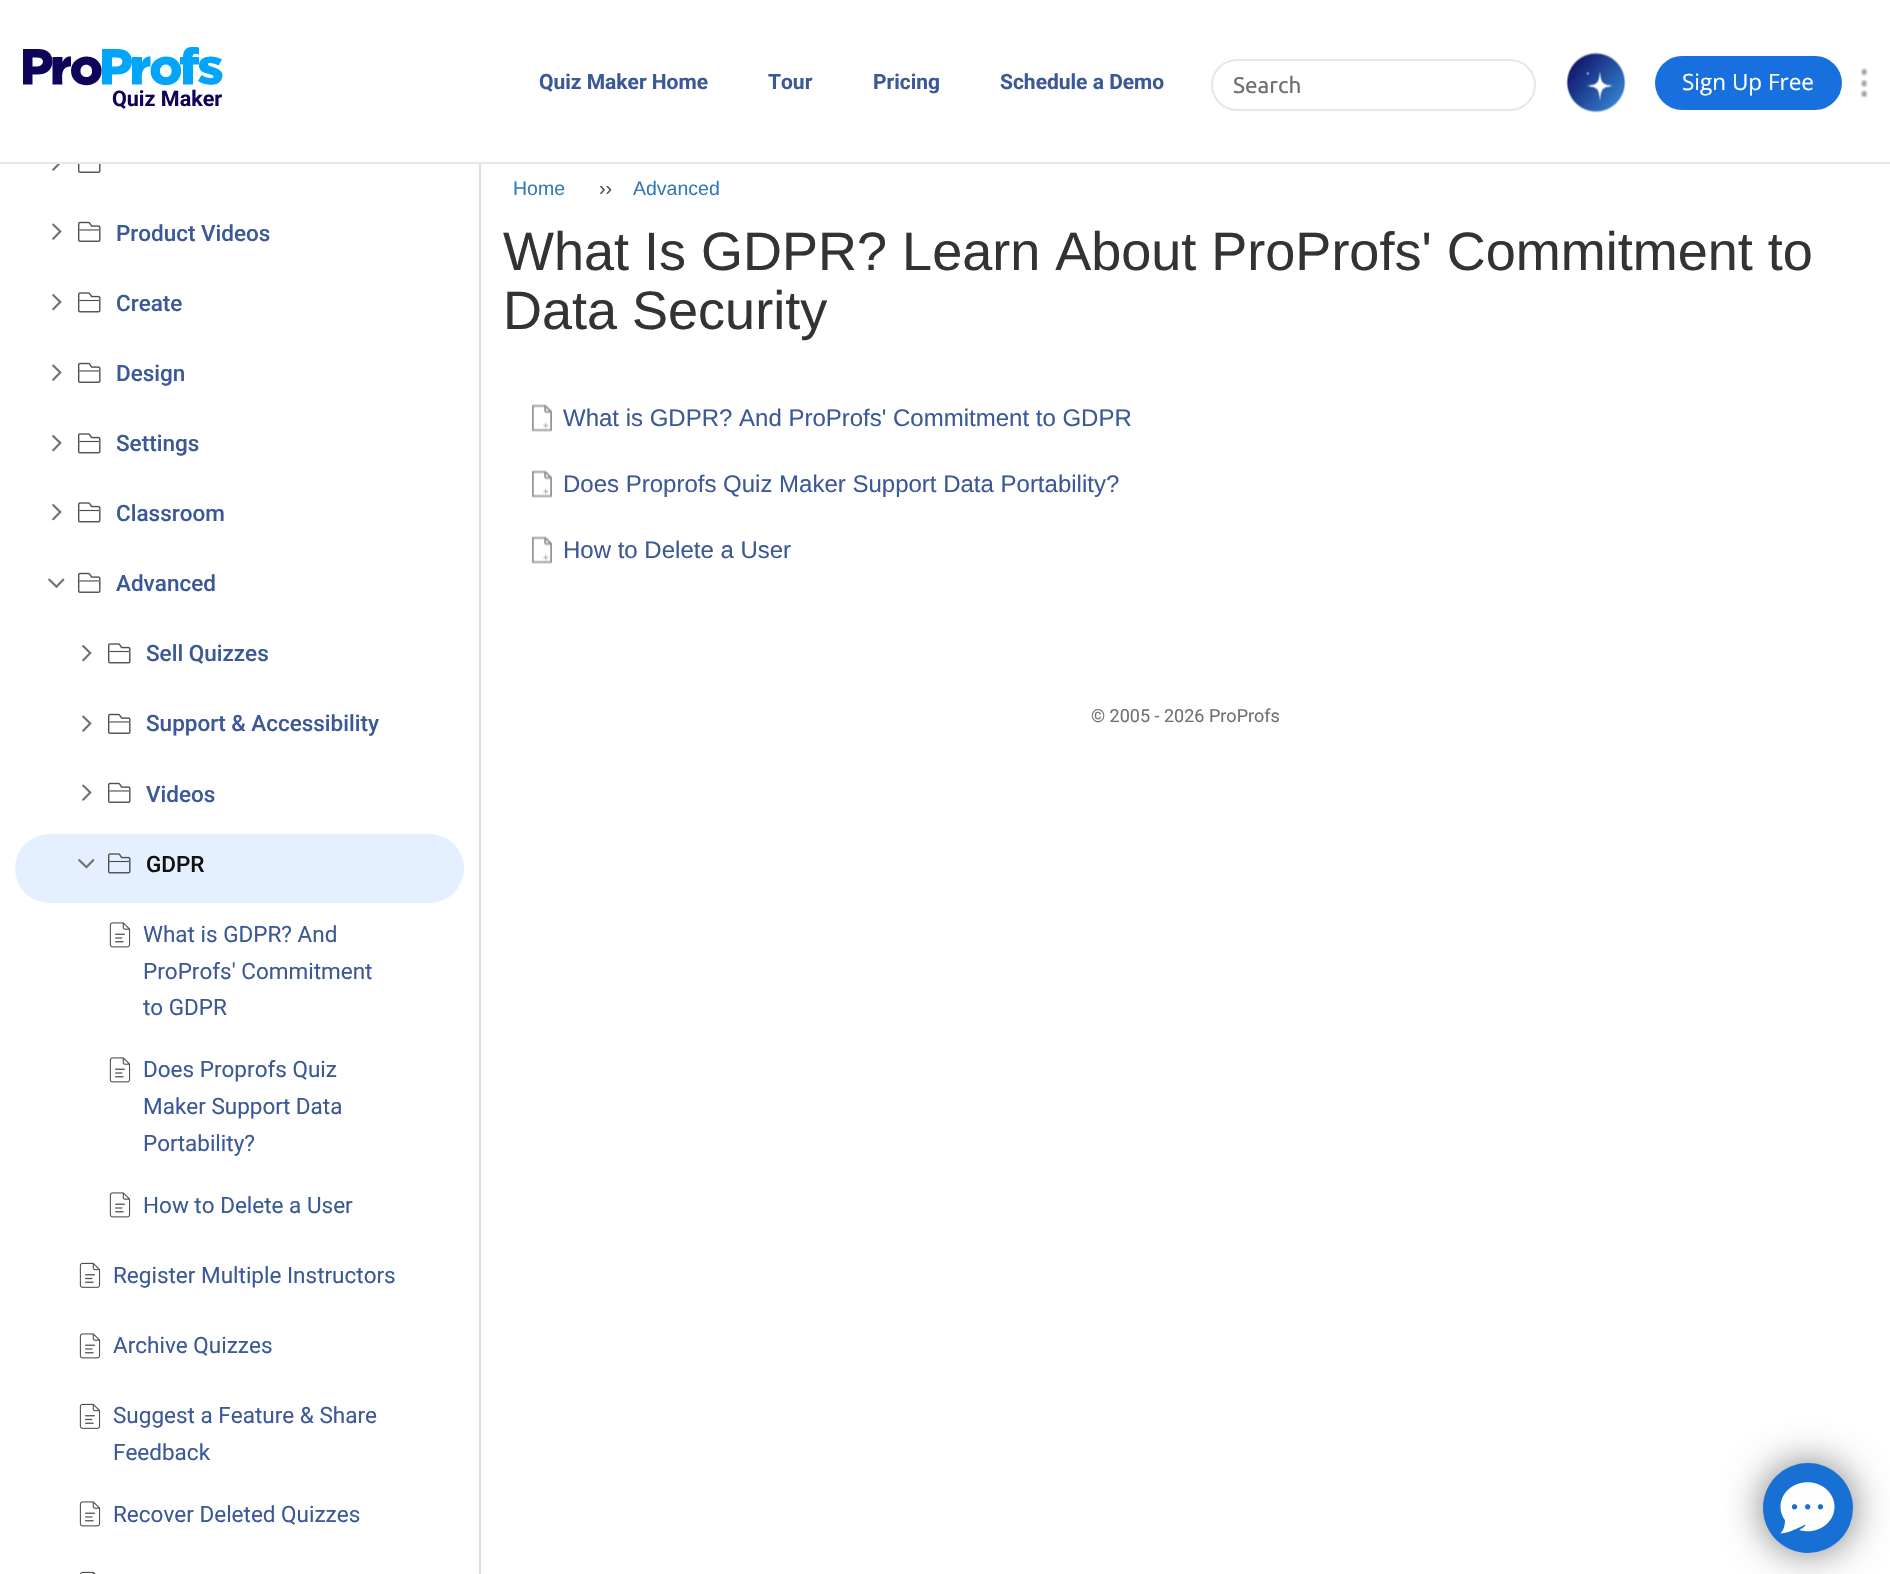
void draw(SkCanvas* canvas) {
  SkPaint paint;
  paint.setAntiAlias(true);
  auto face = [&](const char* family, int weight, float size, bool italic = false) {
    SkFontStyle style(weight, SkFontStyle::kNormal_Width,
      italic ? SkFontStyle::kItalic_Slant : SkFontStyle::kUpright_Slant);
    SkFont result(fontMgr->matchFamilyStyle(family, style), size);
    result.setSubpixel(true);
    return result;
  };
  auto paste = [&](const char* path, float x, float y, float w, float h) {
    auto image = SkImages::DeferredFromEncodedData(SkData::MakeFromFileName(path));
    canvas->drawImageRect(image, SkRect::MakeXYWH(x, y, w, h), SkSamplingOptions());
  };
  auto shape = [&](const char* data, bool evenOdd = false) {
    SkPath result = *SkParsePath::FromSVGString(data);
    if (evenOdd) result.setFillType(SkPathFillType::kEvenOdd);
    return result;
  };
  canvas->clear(0xffffffff);
  paint.setColor(0xffe7e7e7);
  canvas->drawRect(SkRect::MakeXYWH(0, 162, 1890, 2), paint);
  paint.setColor(0xff03a5fb);
  canvas->drawPath(shape("M117.5 49H102V84.5H112V74.5H117C125.5 74.5 132 70 132 61.5C132 53.5 126.5 49 117.5 49ZM116.5 66.5H112V57.5C114.5 57.5 117.5 57 120 58C124.5 60 122.5 66.5 116.5 66.5Z", true), paint);
  canvas->drawPath(shape("M142 57H132V84.5H142C142 77 140 66.5 150.5 66.5V56.5C146 56 143.5 58.5 142 62.5Z"), paint);
  canvas->drawPath(shape("M150.5 71C150.5 87 174 90.5 180 76.5C180.5 75 181.5 72.5 181 70.5C181 68 181 67.5 180 65C174 51 150.5 55 150.5 71ZM171.5 71C172 79 160 79 160 71C160 69.5 160 68.5 161 67.5C164 62 172 65 171.5 71Z", true), paint);
  canvas->save();
  canvas->clipRect(SkRect::MakeXYWH(23, 47, 200, 62));
  canvas->drawPath(shape("M180 64.5H183V84.5H193V64.5H199V57H192.5C192.5 53 196 53.5 199 54.5V47.5C190.5 45.5 183 47 183 57H180Z"), paint);
  canvas->restore();
  canvas->drawPath(shape("M198 81H198ZM198 81C200.5 83 204 84 207.5 84.5C215 85.5 221.5 84 222.5 75.5C222.5 74 222 72 220.5 71C218 68 213.5 67.5 210 66C208 65.5 207 63.5 209.5 63C212.5 63 216 64 218.5 65.5L222 59.5C218.5 57.5 214.5 56.5 210.5 56.5C204 56.5 199 59.5 199 65.5C199 71 203.5 73 209 74C212 75 213.5 75.5 213.5 76.5C213.5 77.5 212.5 78 211 78C207.5 78 204.5 77 201.5 75Z", true), paint);
  canvas->save();
  canvas->clipRect(SkRect::MakeXYWH(23, 47, 200, 62));
  paint.setColor(0xff0e055b);
  canvas->drawPath(shape("M22.5 49V84.5H32.5V74.5H37.5C46 74.5 52.5 70 52.5 61.5C52.5 53.5 47 49 38 49ZM37 66.5H32.5V57.5C35 57.5 38 57 40.5 58C45 60 43 66.5 37 66.5Z", true), paint);
  canvas->restore();
  canvas->drawPath(shape("M62.5 57H52.5V84.5H62.5C62.5 77 60 66.5 71 66.5V56.5C66.5 56 64 58.5 62.5 62.5Z"), paint);
  canvas->drawPath(shape("M71 71C71 87 94.5 90.5 100.5 76.5C101.5 74 101.5 73.5 101.5 71C102 69 101 66.5 100.5 65C94.5 51 71 55 71 71ZM92 71C92.5 79 80.5 79 80.5 71C80.5 62.5 92.5 63 92 71Z", true), paint);
  paint.setStroke(true);
  paint.setStrokeWidth(2);
  paint.setColor(0xffe7e7e7);
  canvas->drawRoundRect(SkRect::MakeXYWH(1212, 60, 323, 50), 25, 25, paint);
  paste("img/1.png", 1566, 52, 60, 61);
  paint.setStroke(false);
  paint.setColor(0xff1870df);
  canvas->drawRoundRect(SkRect::MakeXYWH(1655, 56, 187, 54), 27, 27, paint);
  paste("img/2.png", 1860, 68, 8, 30);
  paint.setColor(0xffdddddd);
  canvas->drawRect(SkRect::MakeXYWH(479, 164, 2, 1410), paint);
  paste("img/3.png", 52, 164, 9, 7);
  paste("img/4.png", 78, 164, 23, 9);
  paste("img/5.png", 52, 223, 10, 17);
  paste("img/6.png", 78, 221, 23, 21);
  paste("img/7.png", 52, 294, 10, 17);
  paste("img/8.png", 78, 292, 23, 21);
  paste("img/5.png", 52, 364, 10, 17);
  paste("img/6.png", 78, 362, 23, 21);
  paste("img/7.png", 52, 435, 10, 17);
  paste("img/8.png", 78, 433, 23, 21);
  paste("img/7.png", 52, 504, 10, 17);
  paste("img/8.png", 78, 502, 23, 21);
  paste("img/9.png", 48, 578, 17, 10);
  paste("img/6.png", 78, 572, 23, 21);
  paste("img/7.png", 82, 645, 10, 17);
  paste("img/8.png", 108, 643, 23, 21);
  paste("img/5.png", 82, 715, 10, 17);
  paste("img/6.png", 108, 713, 23, 21);
  paste("img/5.png", 82, 784, 10, 17);
  paste("img/6.png", 108, 782, 23, 21);
  paint.setColor(0xffe4efff);
  canvas->drawRoundRect(SkRect::MakeXYWH(15, 834, 449, 69), 34.5f, 34.5f, paint);
  paste("img/10.png", 78, 859, 17, 10);
  paste("img/11.png", 108, 853, 23, 21);
  paste("img/12.png", 109, 922, 22, 26);
  paste("img/12.png", 109, 1057, 22, 26);
  paste("img/12.png", 109, 1192, 22, 26);
  paste("img/13.png", 79, 1262, 22, 26);
  paste("img/12.png", 79, 1333, 22, 26);
  paste("img/13.png", 79, 1403, 22, 26);
  paste("img/12.png", 79, 1501, 22, 26);
  paste("img/14.png", 80, 1571, 16, 3);
  paste("img/15.png", 532, 404, 20, 28);
  paste("img/15.png", 532, 470, 20, 28);
  paste("img/15.png", 532, 536, 20, 28);
  paint.setColor(0xff7a7a7a);
  paint.setMaskFilter(SkMaskFilter::MakeBlur(kNormal_SkBlurStyle, 19));
  canvas->drawRoundRect(SkRect::MakeXYWH(1763, 1463, 90, 90), 45, 45, paint);
  paint.setMaskFilter(nullptr);
  paint.setColor(0xff1870d5);
  canvas->drawCircle(1808, 1508, 45, paint);
  paste("img/16.png", 1780, 1482, 55, 52);
  auto f0 = face("Roboto", 700, 21);
  paint.setColor(0xff3b5998);
  {
    const struct { const char* s; float x, y; } items[] = {
      {"Quiz Maker Home", 539, 89},
      {"Tour", 768, 89},
      {"Pricing", 873, 89},
      {"Schedule a Demo", 1000, 89},
    };
    for (auto [s, x, y] : items) {
      canvas->drawString(s, x, y, f0, paint);
    }
  }
  auto f1 = face("Roboto", 700, 21.5f);
  paint.setColor(0xff0e055b);
  canvas->drawString("Quiz Maker", 112, 106, f1, paint);
  auto f2 = face("Ubuntu", 400, 22.5f);
  paint.setColor(0xff707070);
  canvas->drawString("Search", 1233, 93, f2, paint);
  auto f3 = face("Open Sans", 400, 22.5f);
  paint.setColor(0xffffffff);
  canvas->drawString("Sign Up Free", 1682, 90, f3, paint);
  auto f4 = face("Roboto", 500, 22.5f);
  paint.setColor(0xff3b5998);
  {
    const struct { const char* s; float x, y; } items[] = {
      {"Product Videos", 116, 241},
      {"Create", 116, 311},
      {"Design", 116, 381},
      {"Settings", 116, 451},
      {"Classroom", 116, 521},
      {"Advanced", 116, 591},
      {"Sell Quizzes", 146, 661},
      {"Support & Accessibility", 146, 731},
      {"Videos", 146, 802},
    };
    for (auto [s, x, y] : items) {
      canvas->drawString(s, x, y, f4, paint);
    }
  }
  paint.setColor(0xff111111);
  canvas->drawString("GDPR", 146, 872, f4, paint);
  auto f5 = face("Roboto", 400, 22.5f);
  paint.setColor(0xff3b5998);
  {
    const struct { const char* s; float x, y; } items[] = {
      {"What is GDPR? And", 143, 942},
      {"ProProfs' Commitment", 143, 979},
      {"to GDPR", 143, 1015},
      {"Does Proprofs Quiz", 143, 1077},
      {"Maker Support Data", 143, 1114},
      {"Portability?", 143, 1151},
      {"How to Delete a User", 143, 1213},
      {"Register Multiple Instructors", 113, 1283},
      {"Archive Quizzes", 113, 1353},
      {"Suggest a Feature & Share", 113, 1423},
      {"Feedback", 113, 1460},
      {"Recover Deleted Quizzes", 113, 1522},
    };
    for (auto [s, x, y] : items) {
      canvas->drawString(s, x, y, f5, paint);
    }
  }
  auto f6 = face("Liberation Sans", 400, 19.5f);
  paint.setColor(0xff337ab7);
  canvas->drawString("Home", 513, 195, f6, paint);
  paint.setColor(0xff4d4d4d);
  canvas->drawString("››", 599, 195, f6, paint);
  paint.setColor(0xff337ab7);
  canvas->drawString("Advanced", 633, 195, f6, paint);
  auto f7 = face("Liberation Sans", 400, 54);
  paint.setColor(0xff333333);
  canvas->drawString("What Is GDPR? Learn About ProProfs' Commitment to", 503, 270, f7, paint);
  canvas->drawString("Data Security", 503, 329, f7, paint);
  auto f8 = face("Liberation Sans", 400, 24);
  paint.setColor(0xff3b5998);
  {
    const struct { const char* s; float x, y; } items[] = {
      {"What is GDPR? And ProProfs' Commitment to GDPR", 563, 426},
      {"Does Proprofs Quiz Maker Support Data Portability?", 563, 492},
      {"How to Delete a User", 563, 558},
    };
    for (auto [s, x, y] : items) {
      canvas->drawString(s, x, y, f8, paint);
    }
  }
  auto f9 = face("Roboto", 400, 18);
  paint.setColor(0xff707070);
  canvas->drawString("© 2005 - 2026 ProProfs", 1091, 722, f9, paint);
}
